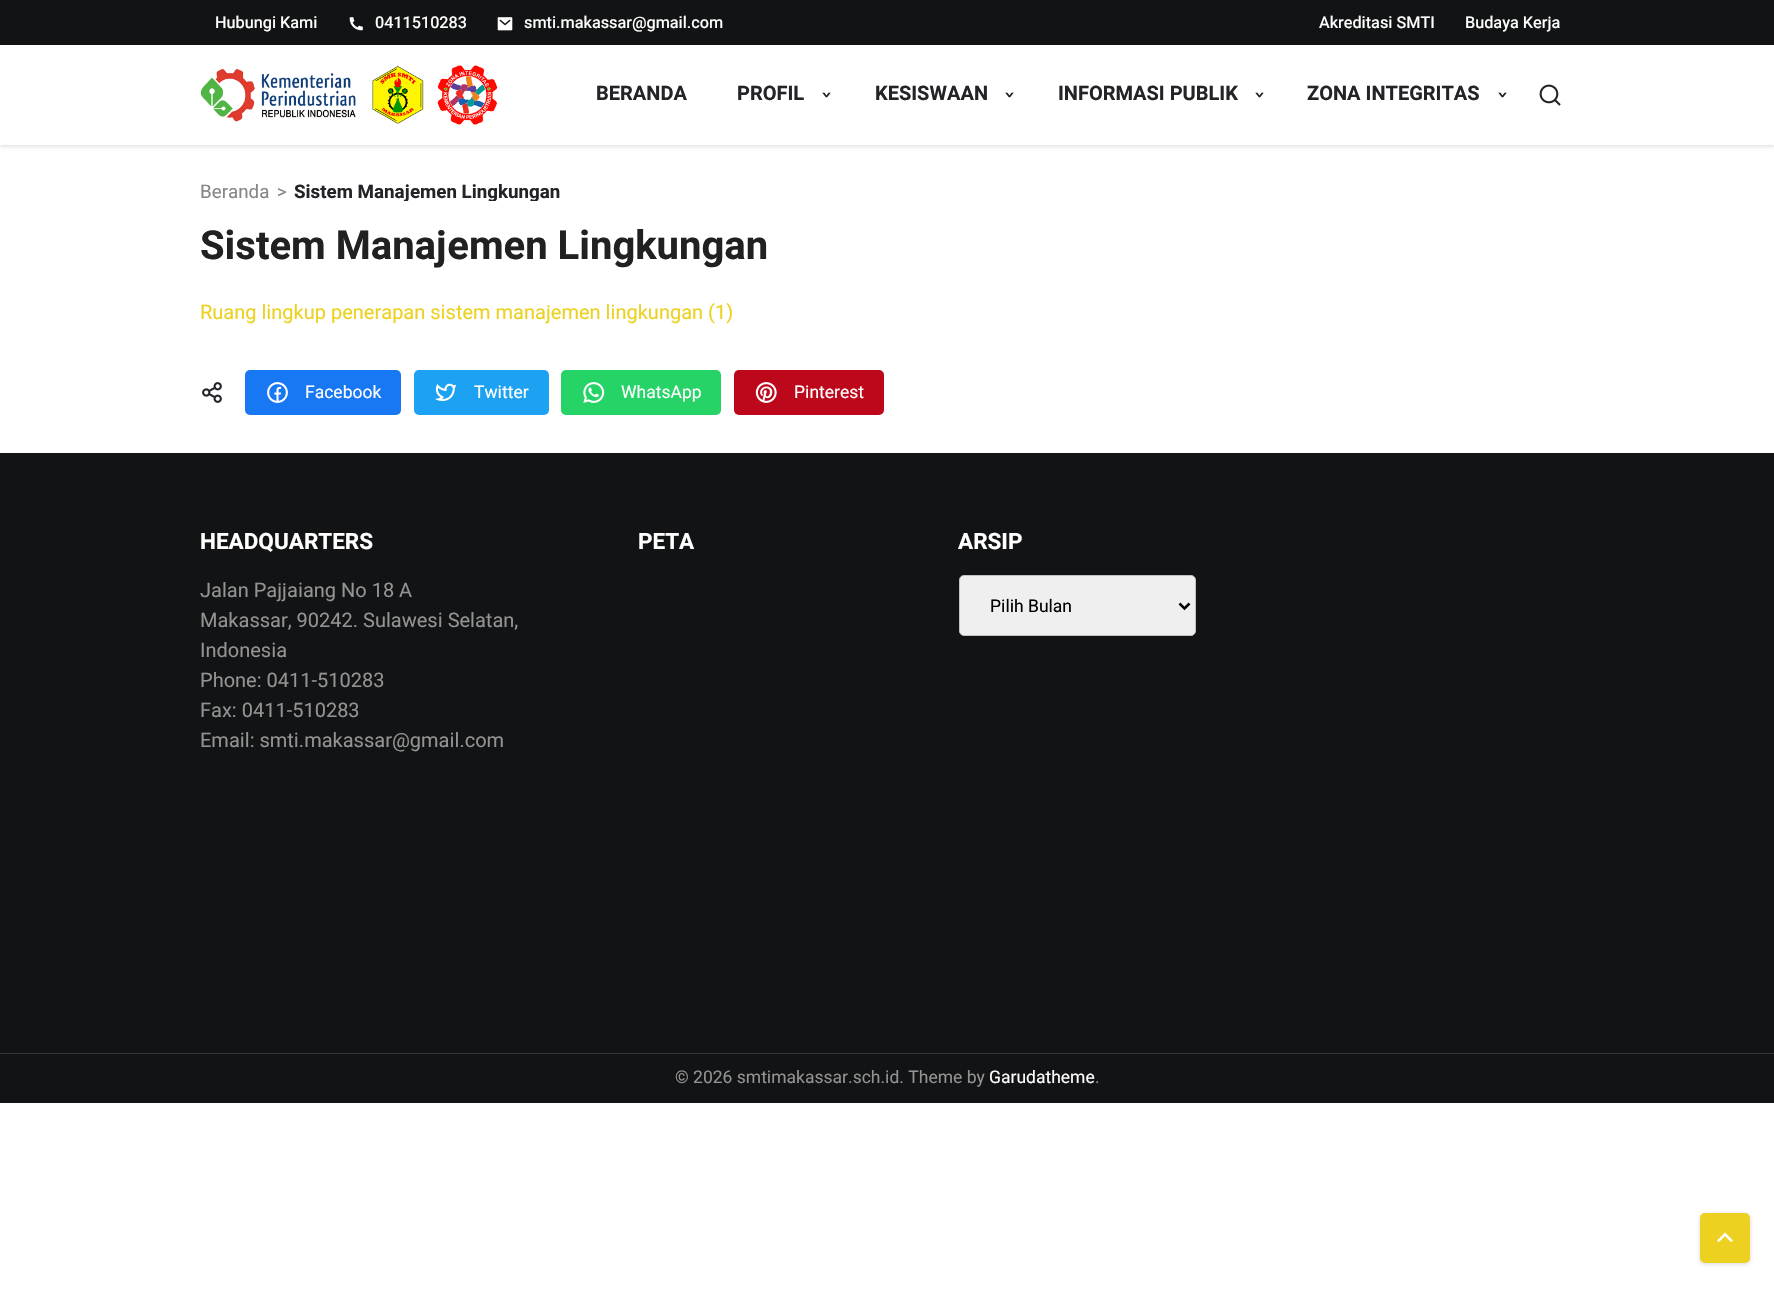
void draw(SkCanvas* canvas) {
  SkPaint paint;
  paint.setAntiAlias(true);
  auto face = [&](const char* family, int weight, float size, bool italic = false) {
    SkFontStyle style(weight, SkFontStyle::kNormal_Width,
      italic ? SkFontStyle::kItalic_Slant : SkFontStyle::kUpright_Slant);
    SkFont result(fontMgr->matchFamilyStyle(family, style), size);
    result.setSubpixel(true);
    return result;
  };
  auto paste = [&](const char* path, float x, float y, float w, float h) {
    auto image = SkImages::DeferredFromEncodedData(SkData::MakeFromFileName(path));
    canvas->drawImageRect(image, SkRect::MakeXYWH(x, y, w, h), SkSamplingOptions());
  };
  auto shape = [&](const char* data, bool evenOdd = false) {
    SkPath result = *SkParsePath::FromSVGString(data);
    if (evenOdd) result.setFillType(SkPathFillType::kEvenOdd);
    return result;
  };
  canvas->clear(0xffffffff);
  paint.setColor(0xff121314);
  canvas->drawRect(SkRect::MakeXYWH(0, 0, 1774, 45), paint);
  paste("img/1.png", 349, 17, 14, 14);
  paste("img/2.png", 497, 17, 16, 14);
  canvas->save();
  canvas->clipPath(shape("M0 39H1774V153H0ZM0 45H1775V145H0Z", true), true);
  paint.setColor(0x26000000);
  paint.setMaskFilter(SkMaskFilter::MakeBlur(kNormal_SkBlurStyle, 2));
  canvas->drawRect(SkRect::MakeXYWH(0, 46, 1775, 100), paint);
  paint.setMaskFilter(nullptr);
  canvas->restore();
  paste("img/3.png", 200, 65, 298, 60);
  paste("img/4.png", 1539, 84, 22, 22);
  paste("img/5.png", 202, 382, 20, 21);
  paint.setColor(0xff1877f2);
  canvas->drawRoundRect(SkRect::MakeXYWH(245, 370, 156, 45), 5, 5, paint);
  paste("img/6.png", 267, 382, 21, 21);
  paint.setColor(0xff1da1f2);
  canvas->drawRoundRect(SkRect::MakeXYWH(414, 370, 135, 45), 5, 5, paint);
  paste("img/7.png", 435, 383, 21, 18);
  paint.setColor(0xff25d366);
  canvas->drawRoundRect(SkRect::MakeXYWH(561, 370, 160, 45), 5, 5, paint);
  paste("img/8.png", 583, 382, 22, 21);
  paint.setColor(0xffbd081c);
  canvas->drawRoundRect(SkRect::MakeXYWH(734, 370, 150, 45), 5, 5, paint);
  paste("img/9.png", 755, 382, 22, 21);
  paint.setColor(0xff121314);
  canvas->drawRect(SkRect::MakeXYWH(0, 453, 1774, 650), paint);
  paint.setColor(0xffefefef);
  canvas->drawRoundRect(SkRect::MakeXYWH(959.5f, 575.5f, 236, 60), 4.5f, 4.5f, paint);
  paint.setStroke(true);
  paint.setStrokeWidth(1);
  paint.setColor(0xffc2c2c2);
  canvas->drawRoundRect(SkRect::MakeXYWH(959.5f, 575.5f, 236, 60), 4.5f, 4.5f, paint);
  paint.setStrokeWidth(2.5f);
  paint.setColor(0xff000000);
  canvas->drawPath(shape("M1179.5 603.5L1184.5 608.5L1189.5 603.5"), paint);
  paint.setStroke(false);
  paint.setColor(0xff363637);
  canvas->drawRect(SkRect::MakeXYWH(0, 1053, 1774, 1), paint);
  paint.setColor(0x26000000);
  paint.setMaskFilter(SkMaskFilter::MakeBlur(kNormal_SkBlurStyle, 2));
  canvas->drawRoundRect(SkRect::MakeXYWH(1700, 1214, 50, 50), 5, 5, paint);
  paint.setMaskFilter(nullptr);
  paint.setColor(0xffedd121);
  canvas->drawRoundRect(SkRect::MakeXYWH(1700, 1213, 50, 50), 5, 5, paint);
  paste("img/10.png", 1717, 1232, 16, 11);
  auto f0 = face("Heebo", 500, 16.25f);
  paint.setColor(0xffffffff);
  {
    const struct { const char* s; float x, y; } items[] = {
      {"Hubungi Kami", 215, 28},
      {"0411510283", 375, 28},
      {"smti.makassar@gmail.com", 524, 28},
      {"Akreditasi SMTI", 1319, 28},
      {"Budaya Kerja", 1465, 28},
    };
    for (auto [s, x, y] : items) {
      canvas->drawString(s, x, y, f0, paint);
    }
  }
  auto f1 = face("Heebo", 700, 20);
  paint.setColor(0xff232428);
  canvas->drawString("BERANDA", 596, 100, f1, paint);
  canvas->drawString("PROFIL", 737, 100, f1, paint);
  auto f2 = face("DejaVu Sans Mono", 700, 18.75f);
  canvas->save();
  canvas->rotate(90, 821, 89);
  canvas->drawString("›", 821, 89, f2, paint);
  canvas->restore();
  canvas->drawString("KESISWAAN", 875, 100, f1, paint);
  canvas->save();
  canvas->rotate(90, 1004, 89);
  canvas->drawString("›", 1004, 89, f2, paint);
  canvas->restore();
  canvas->drawString("INFORMASI PUBLIK", 1058, 100, f1, paint);
  canvas->save();
  canvas->rotate(90, 1254, 89);
  canvas->drawString("›", 1254, 89, f2, paint);
  canvas->restore();
  canvas->drawString("ZONA INTEGRITAS", 1307, 100, f1, paint);
  canvas->save();
  canvas->rotate(90, 1497, 89);
  canvas->drawString("›", 1497, 89, f2, paint);
  canvas->restore();
  auto f3 = face("Heebo", 400, 18.75f);
  paint.setColor(0xff868686);
  canvas->drawString("Beranda", 200, 198, f3, paint);
  canvas->drawString(">", 277, 198, f3, paint);
  canvas->save();
  canvas->clipRect(SkRect::MakeXYWH(200, 183, 1375, 18));
  auto f4 = face("Heebo", 700, 18.75f);
  paint.setColor(0xff232428);
  canvas->drawString("Sistem Manajemen Lingkungan", 294, 198, f4, paint);
  canvas->restore();
  auto f5 = face("Heebo", 700, 40);
  paint.setColor(0xff212121);
  canvas->drawString("Sistem Manajemen Lingkungan", 200, 259, f5, paint);
  auto f6 = face("Heebo", 400, 20);
  paint.setColor(0xffedd121);
  canvas->drawString("Ruang lingkup penerapan sistem manajemen lingkungan (1)", 200, 319, f6, paint);
  auto f7 = face("Heebo", 400, 17.5f);
  paint.setColor(0xffffffff);
  {
    const struct { const char* s; float x, y; } items[] = {
      {"Facebook", 305, 398},
      {"Twitter", 474, 398},
      {"WhatsApp", 621, 398},
      {"Pinterest", 794, 398},
    };
    for (auto [s, x, y] : items) {
      canvas->drawString(s, x, y, f7, paint);
    }
  }
  auto f8 = face("Heebo", 700, 22.5f);
  canvas->drawString("HEADQUARTERS", 200, 549, f8, paint);
  paint.setColor(0xff939393);
  {
    const struct { const char* s; float x, y; } items[] = {
      {"Jalan Pajjaiang No 18 A", 200, 597},
      {"Makassar, 90242. Sulawesi Selatan,", 200, 627},
      {"Indonesia", 200, 657},
      {"Phone: 0411-510283", 200, 687},
      {"Fax: 0411-510283", 200, 717},
      {"Email: smti.makassar@gmail.com", 200, 747},
    };
    for (auto [s, x, y] : items) {
      canvas->drawString(s, x, y, f6, paint);
    }
  }
  paint.setColor(0xffffffff);
  canvas->drawString("PETA", 638, 549, f8, paint);
  canvas->drawString("ARSIP", 958, 549, f8, paint);
  paint.setColor(0xff000000);
  canvas->drawString("Pilih Bulan", 990, 612, f7, paint);
  paint.setColor(0xff939393);
  canvas->drawString("© 2026 smtimakassar.sch.id. Theme by", 675, 1083, f7, paint);
  paint.setColor(0xffffffff);
  canvas->drawString("Garudatheme", 989, 1083, f7, paint);
  paint.setColor(0xff939393);
  canvas->drawString(".", 1095, 1083, f7, paint);
}
